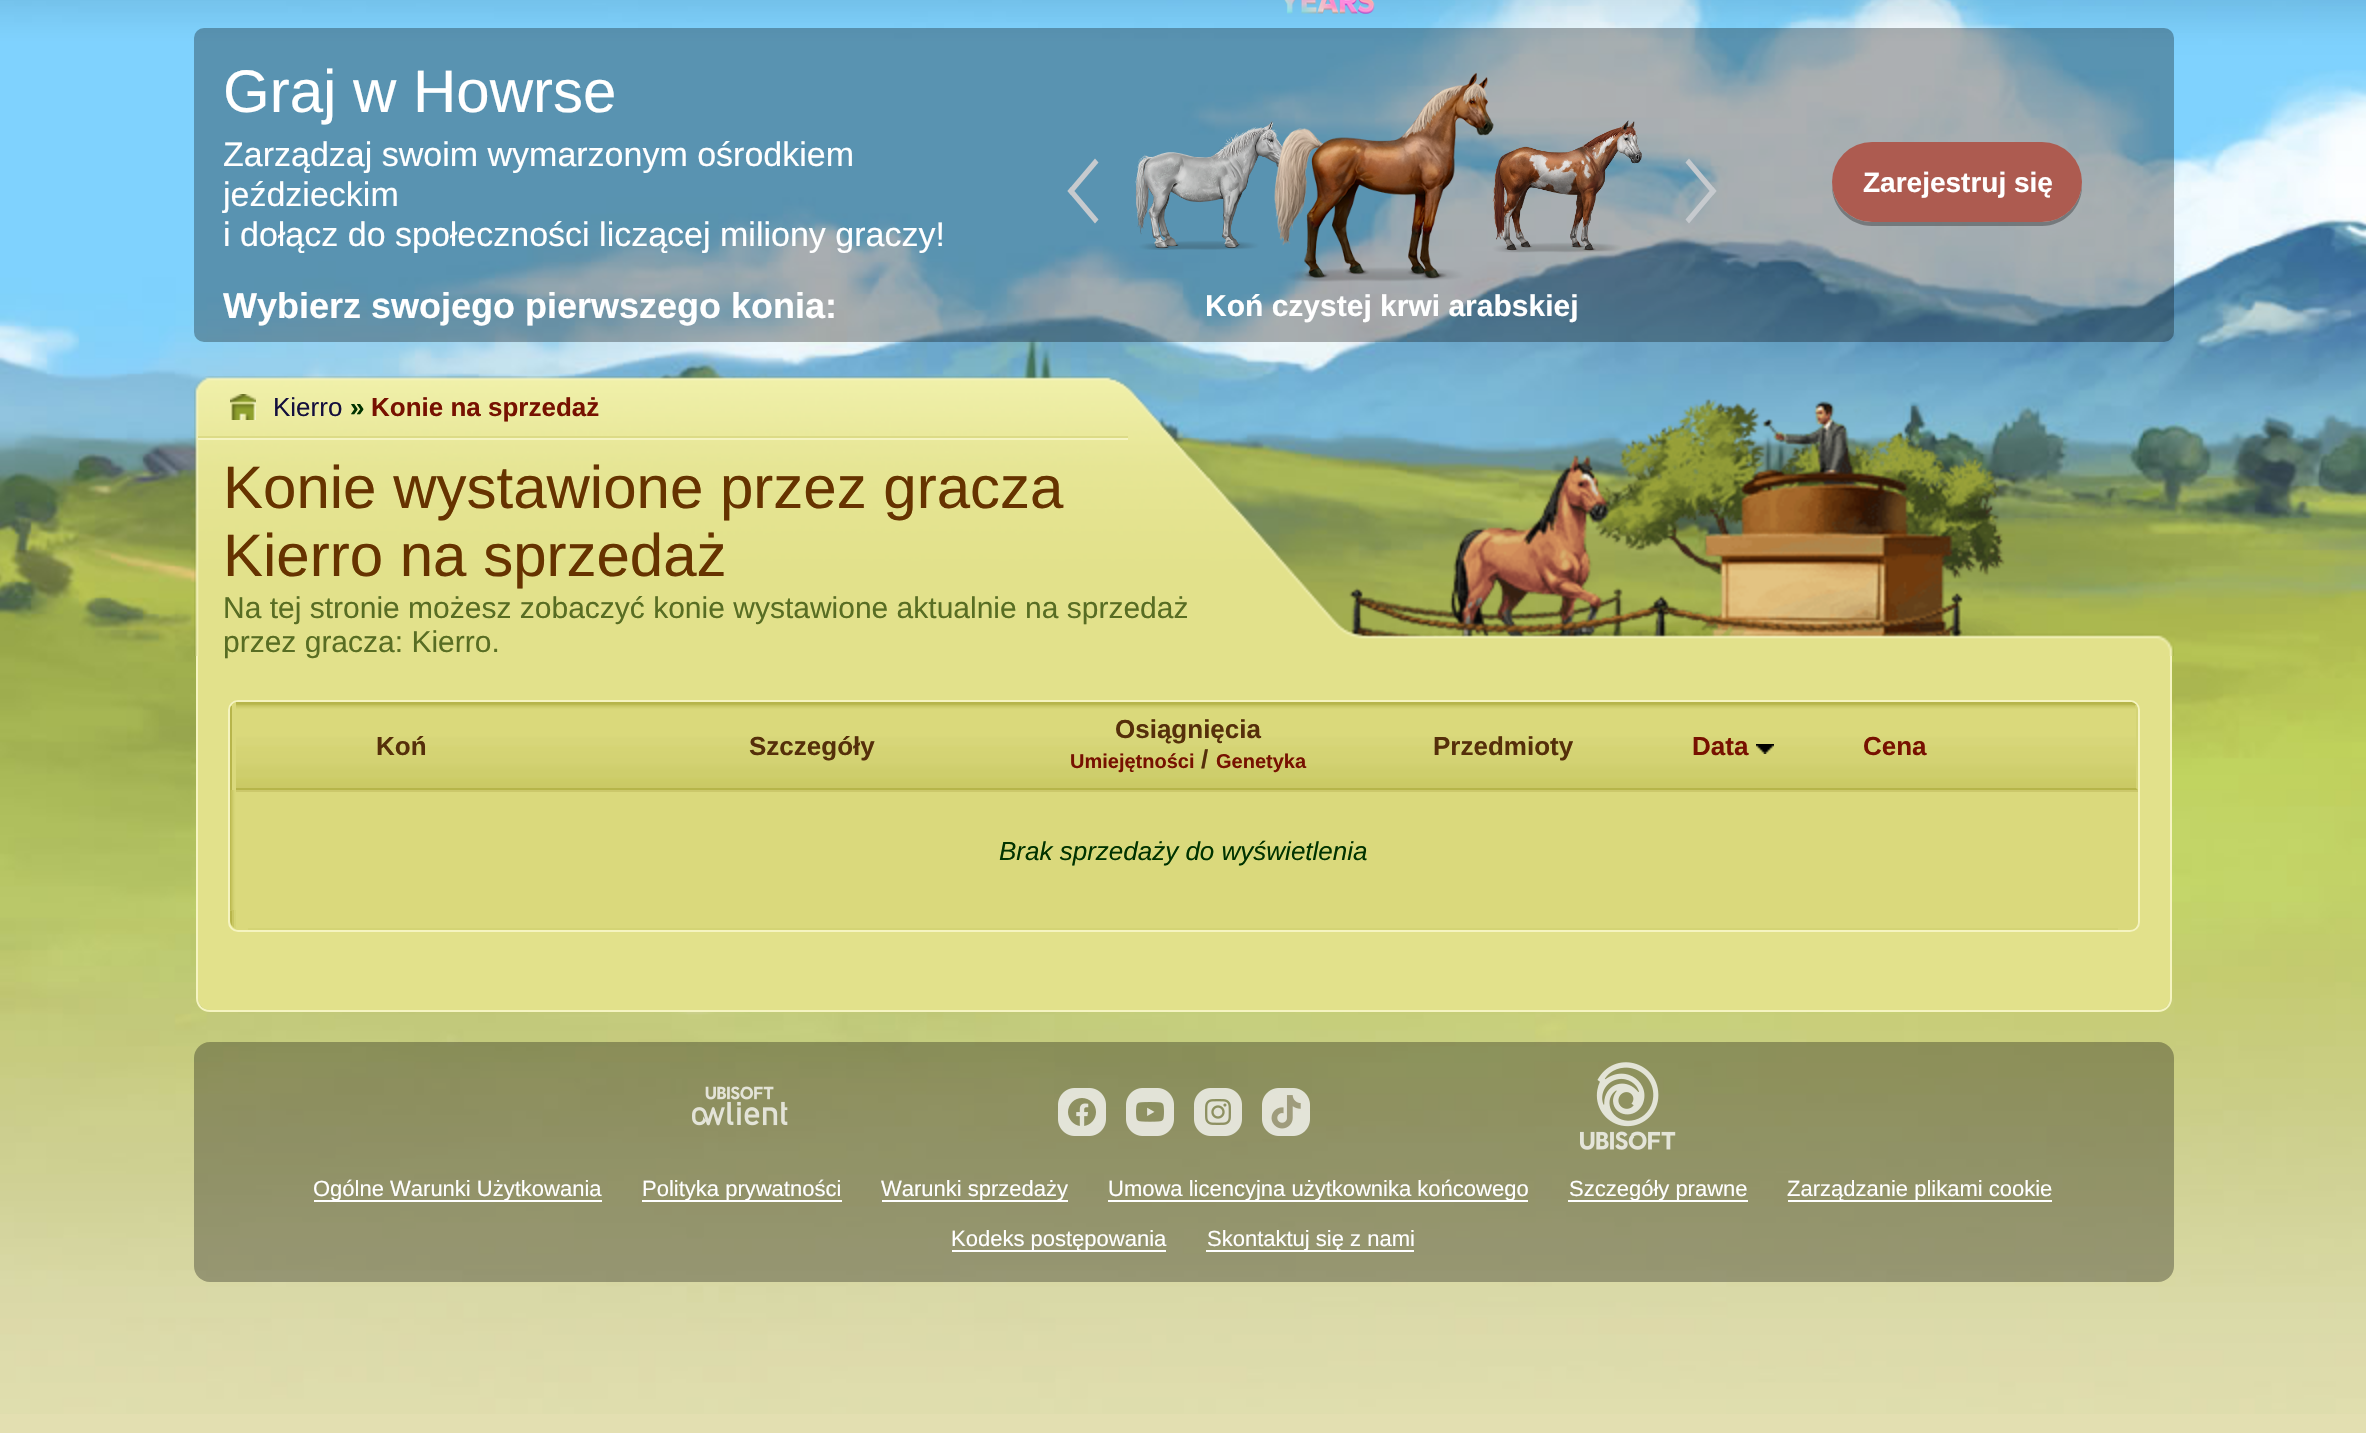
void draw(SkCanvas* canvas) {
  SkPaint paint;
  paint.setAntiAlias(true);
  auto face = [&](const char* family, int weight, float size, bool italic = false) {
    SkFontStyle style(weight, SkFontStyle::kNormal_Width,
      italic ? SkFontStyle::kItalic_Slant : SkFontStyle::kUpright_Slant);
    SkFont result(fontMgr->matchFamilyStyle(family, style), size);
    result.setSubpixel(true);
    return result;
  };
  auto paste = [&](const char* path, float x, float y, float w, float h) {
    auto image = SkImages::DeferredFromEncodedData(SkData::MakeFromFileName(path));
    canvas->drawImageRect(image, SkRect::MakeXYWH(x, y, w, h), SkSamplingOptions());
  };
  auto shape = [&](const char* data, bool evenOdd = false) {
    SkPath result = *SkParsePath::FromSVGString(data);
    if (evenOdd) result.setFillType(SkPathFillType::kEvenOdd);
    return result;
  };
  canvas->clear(0xffe3dfb1);
  paste("img/1.png", 0, 0, 2366, 1414);
  paste("img/2.png", 1284, 0, 91, 14);
  paint.setColor(0x4d000000);
  canvas->drawRoundRect(SkRect::MakeXYWH(194, 28, 1980, 314), 10, 10, paint);
  canvas->drawPath(shape("M1832 184V186C1832 208 1850 226 1872 226H2042C2064 226 2082 208 2082 186V184C2081 205 2063 222 2042 222H1872C1851 222 1833 205 1832 184Z"), paint);
  paint.setColor(0xffad5b50);
  canvas->drawRoundRect(SkRect::MakeXYWH(1832, 142, 250, 80), 40, 40, paint);
  paint.setColor(0xffc6cace);
  canvas->drawPath(shape("M1071 187L1098.5 219.5L1095 223.5L1067.5 191Z"), paint);
  canvas->drawPath(shape("M1095 158.5L1098.5 162.5L1071 195L1067.5 191Z"), paint);
  paste("img/3.png", 1135, 121, 155, 129);
  paste("img/5.png", 1492, 120, 150, 133);
  paste("img/4.png", 1274, 72, 220, 210);
  canvas->drawPath(shape("M1713 195L1685.5 162.5L1689 158.5L1716.5 191Z"), paint);
  canvas->drawPath(shape("M1689 223.5L1685.5 219.5L1713 187L1716.5 191Z"), paint);
  paste("img/9.png", 1349, 398, 671, 239);
  paste("img/6.png", 194, 376, 1980, 280);
  paste("img/7.png", 230, 394, 26, 26);
  {
    const struct { float x, y, w, h; SkColor color; } items[] = {
      {198, 438, 930, 2, 0xfff5f4c1},
      {198, 436, 930, 2, 0xffdcdb87},
      {198, 656, 1972, 14, 0xffe2e18b},
      {2170, 656, 2, 14, 0xfff5f4c1},
      {196, 656, 2, 14, 0xfff5f4c1},
    };
    for (auto [x, y, w, h, color] : items) {
      paint.setColor(color);
      canvas->drawRect(SkRect::MakeXYWH(x, y, w, h), paint);
    }
  }
  paint.setColor(0xffe2e18b);
  canvas->drawPath(shape("M198 670H2170V998C2170 1004.5 2164.5 1010 2158 1010H210C203.5 1010 198 1004.5 198 998Z"), paint);
  paint.setColor(0xfff5f4c1);
  canvas->drawPath(shape("M196 670H2172V998C2172 1006 2166 1012 2158 1012H210C202 1012 196 1006 196 998ZM198 670H2170V998C2170 1005 2165 1010 2158 1010H210C203 1010 198 1005 198 998Z", true), paint);
  paint.setStroke(true);
  paint.setStrokeWidth(2);
  paint.setColor(0xfff5f4c0);
  canvas->drawRoundRect(SkRect::MakeXYWH(229, 701, 1910, 230), 9, 9, paint);
  canvas->save();
  canvas->clipPath(shape("M238 702H2130C2134.5 702 2138 705.5 2138 710V922C2138 926.5 2134.5 930 2130 930H238C233.5 930 230 926.5 230 922V710C230 705.5 233.5 702 238 702Z"), true);
  paint.setStroke(false);
  paint.setColor(0xffdad97c);
  canvas->drawPath(shape("M236 702V790H230V708C230 704.5 232.5 702 236 702Z"), paint);
  paint.setColor(0xffb7b54b);
  canvas->drawRect(SkRect::MakeXYWH(230, 706, 2, 84), paint);
  canvas->restore();
  {
    const SkColor colors[] = {0xffb6b54b, 0xffc8c763, 0xffd4d475, 0xffdad97b, 0xffdad97b, 0xffd7d679, 0xffd7d679, 0xffd5d474, 0xffd3d273, 0xffcece6c, 0xffcece6c, 0xffcccc66, 0xffcac865};
    const float stops[] = {0, 0.02f, 0.05f, 0.07f, 0.38f, 0.41f, 0.48f, 0.52f, 0.69f, 0.79f, 0.86f, 0.9f, 1};
    const SkPoint ends[] = {{242, 704}, {242, 788}};
    paint.setShader(SkGradientShader::MakeLinear(ends, colors, stops, 13, SkTileMode::kClamp));
    paint.setAlpha(255);
  }
  canvas->drawRect(SkRect::MakeXYWH(236, 704, 12, 84), paint);
  paint.setShader(nullptr);
  paint.setColor(0xffb6b54b);
  canvas->drawRect(SkRect::MakeXYWH(236, 702, 1896, 2), paint);
  paint.setColor(0xffb6b54a);
  canvas->drawRect(SkRect::MakeXYWH(236, 788, 1896, 2), paint);
  canvas->save();
  canvas->clipPath(shape("M238 702H2130C2134.5 702 2138 705.5 2138 710V922C2138 926.5 2134.5 930 2130 930H238C233.5 930 230 926.5 230 922V710C230 705.5 233.5 702 238 702Z"), true);
  {
    const SkColor colors[] = {0xffb6b54b, 0xffc8c763, 0xffd4d475, 0xffdad97b, 0xffdad97b, 0xffd7d679, 0xffd7d679, 0xffd5d474, 0xffd3d273, 0xffcece6c, 0xffcece6c, 0xffcccc66, 0xffcac865};
    const float stops[] = {0, 0.02f, 0.05f, 0.07f, 0.38f, 0.41f, 0.48f, 0.52f, 0.69f, 0.79f, 0.86f, 0.9f, 1};
    const SkPoint ends[] = {{2134, 620}, {2134, 704}};
    paint.setShader(SkGradientShader::MakeLinear(ends, colors, stops, 13, SkTileMode::kClamp));
    paint.setAlpha(255);
  }
  canvas->drawRect(SkRect::MakeXYWH(2132, 702, 4, 2), paint);
  canvas->restore();
  {
    const SkColor colors[] = {0xffb6b54b, 0xffc8c763, 0xffd4d475, 0xffdad97b, 0xffdad97b, 0xffd7d679, 0xffd7d679, 0xffd5d474, 0xffd3d273, 0xffcece6c, 0xffcece6c, 0xffcccc66, 0xffcac865};
    const float stops[] = {0, 0.02f, 0.05f, 0.07f, 0.38f, 0.41f, 0.48f, 0.52f, 0.69f, 0.79f, 0.86f, 0.9f, 1};
    const SkPoint ends[] = {{2134, 704}, {2134, 788}};
    paint.setShader(SkGradientShader::MakeLinear(ends, colors, stops, 13, SkTileMode::kClamp));
    paint.setAlpha(255);
  }
  canvas->drawRect(SkRect::MakeXYWH(2132, 704, 4, 84), paint);
  paint.setShader(nullptr);
  paint.setColor(0xffb6b54b);
  canvas->drawPath(shape("M2132 704C2133 704 2134 704.5 2135 705.5V705L2135.5 704.5C2134.5 703.5 2133.5 702.5 2132 702.5Z"), paint);
  paint.setColor(0xffd4d475);
  canvas->drawPath(shape("M2136 704C2137 706 2138 708 2138 710V790L2136 788V708L2135 706Z"), paint);
  paint.setColor(0xffb6b54a);
  canvas->drawPath(shape("M2138 790H2132V788H2136Z"), paint);
  {
    const SkColor colors[] = {0xffb6b54b, 0xffc8c763, 0xffd4d475, 0xffdad97b, 0xffdad97b, 0xffd7d679, 0xffd7d679, 0xffd5d474, 0xffd3d273, 0xffcece6c, 0xffcece6c, 0xffcccc66, 0xffcac865};
    const float stops[] = {0, 0.02f, 0.05f, 0.07f, 0.38f, 0.41f, 0.48f, 0.52f, 0.69f, 0.79f, 0.86f, 0.9f, 1};
    const SkPoint ends[] = {{275, 704}, {275, 788}};
    paint.setShader(SkGradientShader::MakeLinear(ends, colors, stops, 13, SkTileMode::kClamp));
    paint.setAlpha(255);
  }
  canvas->drawRect(SkRect::MakeXYWH(248, 704, 54, 84), paint);
  {
    const SkColor colors[] = {0xffb6b54b, 0xffc8c763, 0xffd4d475, 0xffdad97b, 0xffdad97b, 0xffd7d679, 0xffd7d679, 0xffd5d474, 0xffd3d273, 0xffcece6c, 0xffcece6c, 0xffcccc66, 0xffcac865};
    const float stops[] = {0, 0.02f, 0.05f, 0.07f, 0.38f, 0.41f, 0.48f, 0.52f, 0.69f, 0.79f, 0.86f, 0.9f, 1};
    const SkPoint ends[] = {{339, 704}, {339, 788}};
    paint.setShader(SkGradientShader::MakeLinear(ends, colors, stops, 13, SkTileMode::kClamp));
    paint.setAlpha(255);
  }
  canvas->drawRect(SkRect::MakeXYWH(302, 704, 74, 84), paint);
  {
    const SkColor colors[] = {0xffb6b54b, 0xffc8c763, 0xffd4d475, 0xffdad97b, 0xffdad97b, 0xffd7d679, 0xffd7d679, 0xffd5d474, 0xffd3d273, 0xffcece6c, 0xffcece6c, 0xffcccc66, 0xffcac865};
    const float stops[] = {0, 0.02f, 0.05f, 0.07f, 0.38f, 0.41f, 0.48f, 0.52f, 0.69f, 0.79f, 0.86f, 0.9f, 1};
    const SkPoint ends[] = {{562, 704}, {562, 788}};
    paint.setShader(SkGradientShader::MakeLinear(ends, colors, stops, 13, SkTileMode::kClamp));
    paint.setAlpha(255);
  }
  canvas->drawRect(SkRect::MakeXYWH(376, 704, 372, 84), paint);
  {
    const SkColor colors[] = {0xffb6b54b, 0xffc8c763, 0xffd4d475, 0xffdad97b, 0xffdad97b, 0xffd7d679, 0xffd7d679, 0xffd5d474, 0xffd3d273, 0xffcece6c, 0xffcece6c, 0xffcccc66, 0xffcac865};
    const float stops[] = {0, 0.02f, 0.05f, 0.07f, 0.38f, 0.41f, 0.48f, 0.52f, 0.69f, 0.79f, 0.86f, 0.9f, 1};
    const SkPoint ends[] = {{891, 704}, {891, 788}};
    paint.setShader(SkGradientShader::MakeLinear(ends, colors, stops, 13, SkTileMode::kClamp));
    paint.setAlpha(255);
  }
  canvas->drawRect(SkRect::MakeXYWH(748, 704, 286, 84), paint);
  {
    const SkColor colors[] = {0xffb6b54b, 0xffc8c763, 0xffd4d475, 0xffdad97b, 0xffdad97b, 0xffd7d679, 0xffd7d679, 0xffd5d474, 0xffd3d273, 0xffcece6c, 0xffcece6c, 0xffcccc66, 0xffcac865};
    const float stops[] = {0, 0.02f, 0.05f, 0.07f, 0.38f, 0.41f, 0.48f, 0.52f, 0.69f, 0.79f, 0.86f, 0.9f, 1};
    const SkPoint ends[] = {{1187, 704}, {1187, 788}};
    paint.setShader(SkGradientShader::MakeLinear(ends, colors, stops, 13, SkTileMode::kClamp));
    paint.setAlpha(255);
  }
  canvas->drawRect(SkRect::MakeXYWH(1034, 704, 306, 84), paint);
  {
    const SkColor colors[] = {0xffb6b54b, 0xffc8c763, 0xffd4d475, 0xffdad97b, 0xffdad97b, 0xffd7d679, 0xffd7d679, 0xffd5d474, 0xffd3d273, 0xffcece6c, 0xffcece6c, 0xffcccc66, 0xffcac865};
    const float stops[] = {0, 0.02f, 0.05f, 0.07f, 0.38f, 0.41f, 0.48f, 0.52f, 0.69f, 0.79f, 0.86f, 0.9f, 1};
    const SkPoint ends[] = {{1502, 704}, {1502, 788}};
    paint.setShader(SkGradientShader::MakeLinear(ends, colors, stops, 13, SkTileMode::kClamp));
    paint.setAlpha(255);
  }
  canvas->drawRect(SkRect::MakeXYWH(1340, 704, 324, 84), paint);
  {
    const SkColor colors[] = {0xffb6b54b, 0xffc8c763, 0xffd4d475, 0xffdad97b, 0xffdad97b, 0xffd7d679, 0xffd7d679, 0xffd5d474, 0xffd3d273, 0xffcece6c, 0xffcece6c, 0xffcccc66, 0xffcac865};
    const float stops[] = {0, 0.02f, 0.05f, 0.07f, 0.38f, 0.41f, 0.48f, 0.52f, 0.69f, 0.79f, 0.86f, 0.9f, 1};
    const SkPoint ends[] = {{1732, 704}, {1732, 788}};
    paint.setShader(SkGradientShader::MakeLinear(ends, colors, stops, 13, SkTileMode::kClamp));
    paint.setAlpha(255);
  }
  canvas->drawRect(SkRect::MakeXYWH(1664, 704, 136, 84), paint);
  paste("img/8.png", 1756, 744, 18, 10);
  {
    const SkColor colors[] = {0xffb6b54b, 0xffc8c763, 0xffd4d475, 0xffdad97b, 0xffdad97b, 0xffd7d679, 0xffd7d679, 0xffd5d474, 0xffd3d273, 0xffcece6c, 0xffcece6c, 0xffcccc66, 0xffcac865};
    const float stops[] = {0, 0.02f, 0.05f, 0.07f, 0.38f, 0.41f, 0.48f, 0.52f, 0.69f, 0.79f, 0.86f, 0.9f, 1};
    const SkPoint ends[] = {{1895, 704}, {1895, 788}};
    paint.setShader(SkGradientShader::MakeLinear(ends, colors, stops, 13, SkTileMode::kClamp));
    paint.setAlpha(255);
  }
  canvas->drawRect(SkRect::MakeXYWH(1800, 704, 190, 84), paint);
  {
    const SkColor colors[] = {0xffb6b54b, 0xffc8c763, 0xffd4d475, 0xffdad97b, 0xffdad97b, 0xffd7d679, 0xffd7d679, 0xffd5d474, 0xffd3d273, 0xffcece6c, 0xffcece6c, 0xffcccc66, 0xffcac865};
    const float stops[] = {0, 0.02f, 0.05f, 0.07f, 0.38f, 0.41f, 0.48f, 0.52f, 0.69f, 0.79f, 0.86f, 0.9f, 1};
    const SkPoint ends[] = {{2017, 704}, {2017, 788}};
    paint.setShader(SkGradientShader::MakeLinear(ends, colors, stops, 13, SkTileMode::kClamp));
    paint.setAlpha(255);
  }
  canvas->drawRect(SkRect::MakeXYWH(1990, 704, 54, 84), paint);
  {
    const SkColor colors[] = {0xffb6b54b, 0xffc8c763, 0xffd4d475, 0xffdad97b, 0xffdad97b, 0xffd7d679, 0xffd7d679, 0xffd5d474, 0xffd3d273, 0xffcece6c, 0xffcece6c, 0xffcccc66, 0xffcac865};
    const float stops[] = {0, 0.02f, 0.05f, 0.07f, 0.38f, 0.41f, 0.48f, 0.52f, 0.69f, 0.79f, 0.86f, 0.9f, 1};
    const SkPoint ends[] = {{2081, 704}, {2081, 788}};
    paint.setShader(SkGradientShader::MakeLinear(ends, colors, stops, 13, SkTileMode::kClamp));
    paint.setAlpha(255);
  }
  canvas->drawRect(SkRect::MakeXYWH(2044, 704, 74, 84), paint);
  {
    const SkColor colors[] = {0xffb6b54b, 0xffc8c763, 0xffd4d475, 0xffdad97b, 0xffdad97b, 0xffd7d679, 0xffd7d679, 0xffd5d474, 0xffd3d273, 0xffcece6c, 0xffcece6c, 0xffcccc66, 0xffcac865};
    const float stops[] = {0, 0.02f, 0.05f, 0.07f, 0.38f, 0.41f, 0.48f, 0.52f, 0.69f, 0.79f, 0.86f, 0.9f, 1};
    const SkPoint ends[] = {{2125, 704}, {2125, 788}};
    paint.setShader(SkGradientShader::MakeLinear(ends, colors, stops, 13, SkTileMode::kClamp));
    paint.setAlpha(255);
  }
  canvas->drawRect(SkRect::MakeXYWH(2118, 704, 14, 84), paint);
  paint.setShader(nullptr);
  paint.setColor(0xffdad97c);
  canvas->drawRect(SkRect::MakeXYWH(236, 792, 1902, 118), paint);
  {
    const SkColor colors[] = {0xffb7b54b, 0xffc9c763, 0xffd4d475, 0xffdad97c};
    const float stops[] = {0, 0.33f, 0.66f, 1};
    const SkPoint ends[] = {{230, 850}, {236, 850}};
    paint.setShader(SkGradientShader::MakeLinear(ends, colors, stops, 4, SkTileMode::kClamp));
    paint.setAlpha(255);
  }
  canvas->drawRect(SkRect::MakeXYWH(230, 790, 6, 120), paint);
  paint.setShader(nullptr);
  paint.setColor(0xffcbc86b);
  canvas->drawRect(SkRect::MakeXYWH(236, 790, 1902, 2), paint);
  canvas->save();
  canvas->clipPath(shape("M238 702H2130C2134.5 702 2138 705.5 2138 710V922C2138 926.5 2134.5 930 2130 930H238C233.5 930 230 926.5 230 922V710C230 705.5 233.5 702 238 702Z"), true);
  canvas->clipPath(shape("M230 910H2138V930H240C234.5 930 230 925.5 230 920Z"), true);
  paint.setColor(0xffdad97c);
  canvas->drawPath(shape("M236 910H2138V922C2138 926.5 2134.5 930 2130 930H236Z"), paint);
  canvas->restore();
  canvas->save();
  canvas->clipPath(shape("M230 910H248V930H240C234.5 930 230 925.5 230 920Z"), true);
  paint.setColor(0xffb7b54b);
  canvas->drawRoundRect(SkRect::MakeXYWH(230, 910, 2, 20), 1, 1, paint);
  {
    const struct { float x, y, w, h; SkColor color; } items[] = {
      {232, 910, 2, 20, 0xffc9c763},
      {234, 910, 2, 20, 0xffd4d475},
      {236, 910, 12, 20, 0xffdad97c},
    };
    for (auto [x, y, w, h, color] : items) {
      paint.setColor(color);
      canvas->drawRect(SkRect::MakeXYWH(x, y, w, h), paint);
    }
  }
  canvas->restore();
  paint.setColor(0xffd4d475);
  canvas->drawRect(SkRect::MakeXYWH(248, 928, 1870, 2), paint);
  paint.setColor(0x4d000000);
  canvas->drawRoundRect(SkRect::MakeXYWH(194, 1042, 1980, 240), 16, 16, paint);
  paste("img/10.png", 692, 1086, 96, 40);
  paste("img/11.png", 1058, 1088, 48, 48);
  paste("img/12.png", 1126, 1088, 48, 48);
  paste("img/13.png", 1194, 1088, 48, 48);
  paste("img/14.png", 1262, 1088, 48, 48);
  paste("img/15.png", 1580, 1062, 96, 88);
  {
    const struct { float x, y, w, h; SkColor color; } items[] = {
      {314, 1200, 288, 2, 0xffffffff},
      {642, 1200, 200, 2, 0xffffffff},
      {882, 1200, 186, 2, 0xffffffff},
      {1108, 1200, 420, 2, 0xffffffff},
      {1568, 1200, 180, 2, 0xffffffff},
      {1788, 1200, 264, 2, 0xffffffff},
      {952, 1250, 214, 2, 0xffffffff},
      {1206, 1250, 208, 2, 0xffffffff},
    };
    for (auto [x, y, w, h, color] : items) {
      paint.setColor(color);
      canvas->drawRect(SkRect::MakeXYWH(x, y, w, h), paint);
    }
  }
  auto f0 = face("Liberation Sans", 400, 60);
  canvas->drawString("Graj w Howrse", 223, 112, f0, paint);
  auto f1 = face("Liberation Sans", 400, 34);
  {
    const struct { const char* s; float x, y; } items[] = {
      {"Zarządzaj swoim wymarzonym ośrodkiem", 223, 166},
      {"jeździeckim", 223, 206},
      {"i dołącz do społeczności liczącej miliony graczy!", 223, 246},
    };
    for (auto [s, x, y] : items) {
      canvas->drawString(s, x, y, f1, paint);
    }
  }
  auto f2 = face("Liberation Sans", 700, 36);
  canvas->drawString("Wybierz swojego pierwszego konia:", 223, 318, f2, paint);
  auto f3 = face("Liberation Sans", 700, 28);
  canvas->drawString("Zarejestruj się", 1863, 192, f3, paint);
  auto f4 = face("Liberation Sans", 700, 30);
  canvas->drawString("Koń czystej krwi arabskiej", 1205, 316, f4, paint);
  auto f5 = face("Liberation Sans", 400, 26);
  paint.setColor(0xff140f3d);
  canvas->drawString("Kierro", 273, 416, f5, paint);
  auto f6 = face("Liberation Sans", 700, 26);
  paint.setColor(0xff003300);
  canvas->drawString("»", 350, 416, f6, paint);
  paint.setColor(0xff771100);
  canvas->drawString("Konie na sprzedaż", 371, 416, f6, paint);
  paint.setColor(0xff663300);
  canvas->drawString("Konie wystawione przez gracza", 223, 508, f0, paint);
  canvas->drawString("Kierro na sprzedaż", 223, 576, f0, paint);
  auto f7 = face("Liberation Sans", 400, 30);
  paint.setColor(0xff586d23);
  canvas->drawString("Na tej stronie możesz zobaczyć konie wystawione aktualnie na sprzedaż", 223, 618, f7, paint);
  canvas->drawString("przez gracza: Kierro.", 223, 652, f7, paint);
  paint.setColor(0xff552f0a);
  {
    const struct { const char* s; float x, y; } items[] = {
      {"Koń", 376, 755},
      {"Szczegóły", 749, 755},
      {"Osiągnięcia", 1115, 738},
    };
    for (auto [s, x, y] : items) {
      canvas->drawString(s, x, y, f6, paint);
    }
  }
  auto f8 = face("Liberation Sans", 700, 20);
  paint.setColor(0xff771100);
  canvas->drawString("Umiejętności", 1070, 768, f8, paint);
  paint.setColor(0xff552f0a);
  canvas->drawString("/", 1201, 768, f6, paint);
  paint.setColor(0xff771100);
  canvas->drawString("Genetyka", 1216, 768, f8, paint);
  paint.setColor(0xff552f0a);
  canvas->drawString("Przedmioty", 1433, 755, f6, paint);
  paint.setColor(0xff771100);
  canvas->drawString("Data", 1692, 755, f6, paint);
  canvas->drawString("Cena", 1863, 755, f6, paint);
  auto f9 = face("Liberation Sans", 400, 26, true);
  paint.setColor(0xff003300);
  canvas->drawString("Brak sprzedaży do wyświetlenia", 999, 860, f9, paint);
  auto f10 = face("Liberation Sans", 400, 22);
  paint.setColor(0xffffffff);
  {
    const struct { const char* s; float x, y; } items[] = {
      {"Ogólne Warunki Użytkowania", 313, 1196},
      {"Polityka prywatności", 642, 1196},
      {"Warunki sprzedaży", 881, 1196},
      {"Umowa licencyjna użytkownika końcowego", 1108, 1196},
      {"Szczegóły prawne", 1569, 1196},
      {"Zarządzanie plikami cookie", 1787, 1196},
      {"Kodeks postępowania", 951, 1246},
      {"Skontaktuj się z nami", 1207, 1246},
    };
    for (auto [s, x, y] : items) {
      canvas->drawString(s, x, y, f10, paint);
    }
  }
}
